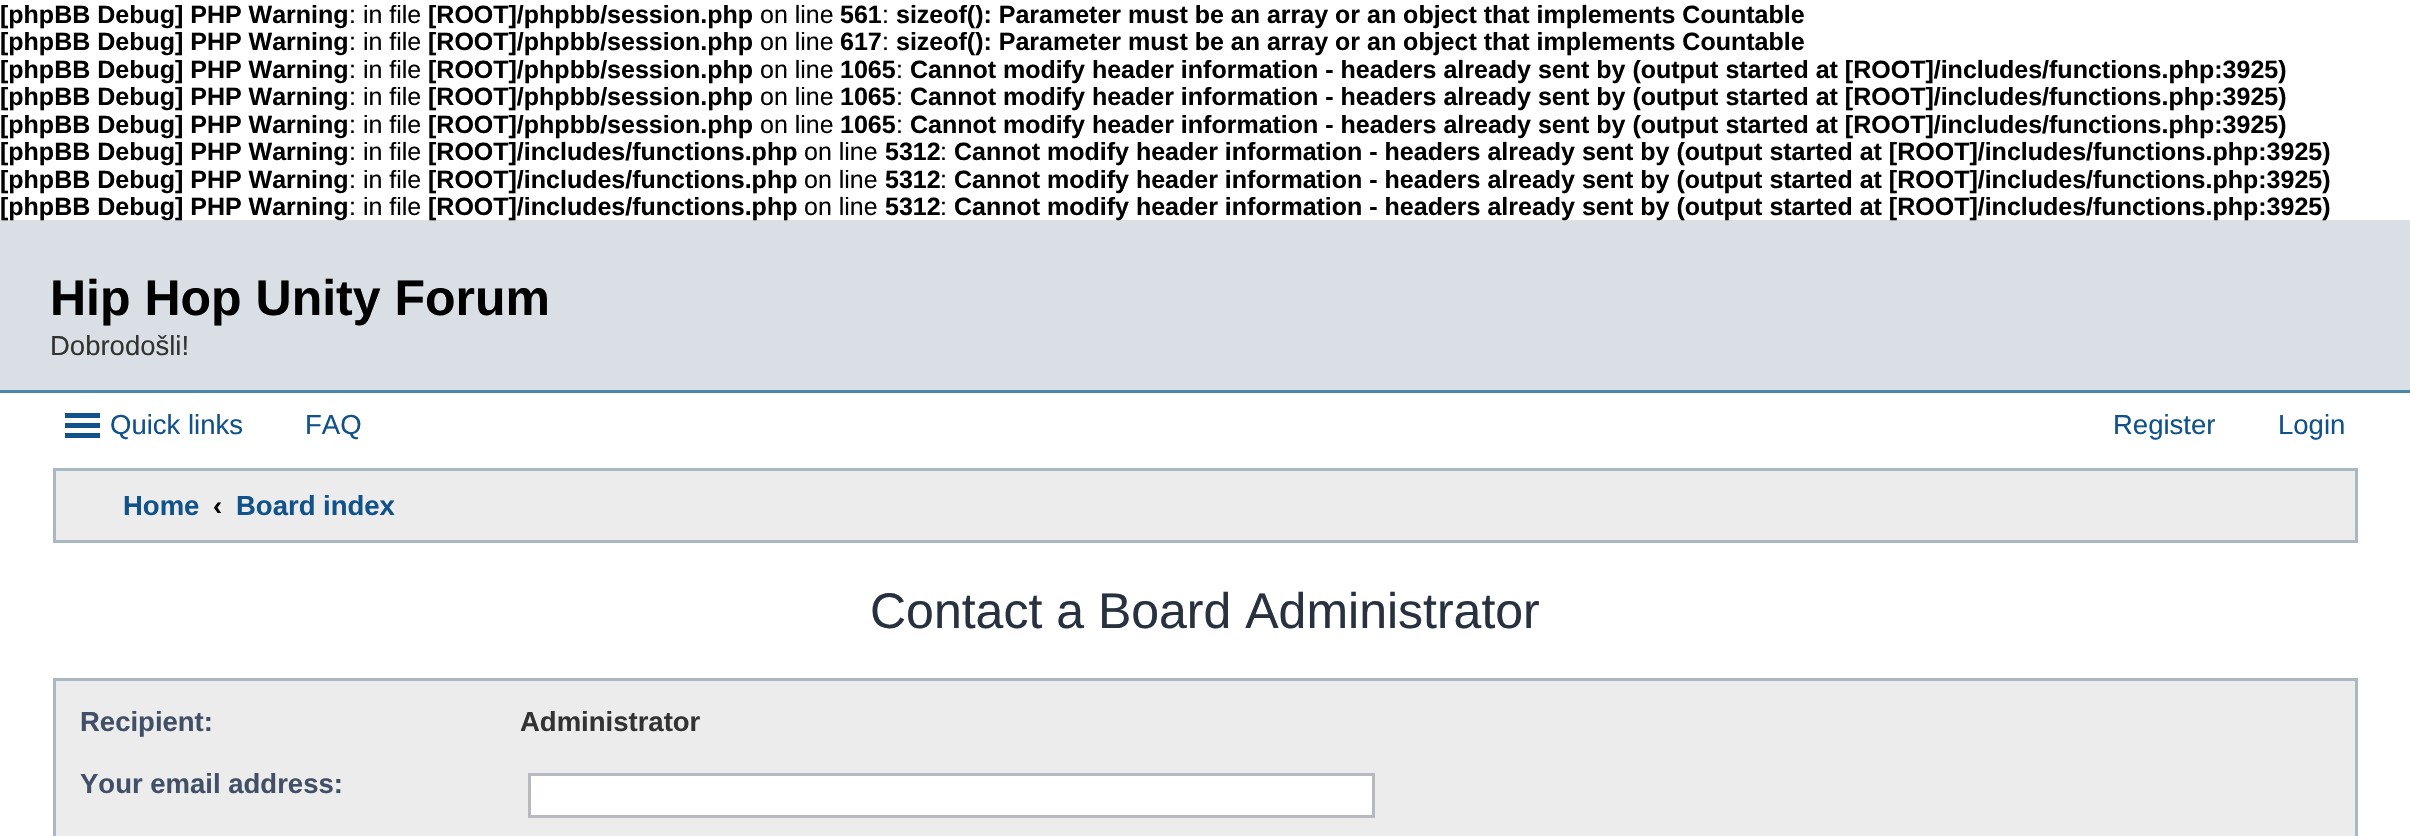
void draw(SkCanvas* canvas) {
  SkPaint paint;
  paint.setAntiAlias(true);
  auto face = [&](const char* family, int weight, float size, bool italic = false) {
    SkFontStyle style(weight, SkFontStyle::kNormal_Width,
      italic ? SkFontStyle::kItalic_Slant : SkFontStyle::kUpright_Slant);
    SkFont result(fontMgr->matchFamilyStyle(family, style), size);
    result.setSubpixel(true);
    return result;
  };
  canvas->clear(0xffffffff);
  {
    const struct { float x, y, w, h; SkColor color; } items[] = {
      {0, 220, 2410, 170, 0xffd9dfe4},
      {0, 390, 2410, 3, 0xff4787a7},
      {65, 413, 35, 5, 0xff105289},
      {65, 423, 35, 5, 0xff105289},
      {65, 433, 35, 5, 0xff105289},
    };
    for (auto [x, y, w, h, color] : items) {
      paint.setColor(color);
      canvas->drawRect(SkRect::MakeXYWH(x, y, w, h), paint);
    }
  }
  paint.setColor(0xffececec);
  canvas->drawRect(SkRect::MakeXYWH(54.5f, 469.5f, 2302, 72), paint);
  paint.setStroke(true);
  paint.setStrokeWidth(3);
  paint.setColor(0xffa9b8c2);
  canvas->drawRect(SkRect::MakeXYWH(54.5f, 469.5f, 2302, 72), paint);
  paint.setStroke(false);
  paint.setColor(0xffececec);
  canvas->drawRect(SkRect::MakeXYWH(54.5f, 679.5f, 2302, 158), paint);
  paint.setStroke(true);
  paint.setColor(0xffa9b8c2);
  canvas->drawRect(SkRect::MakeXYWH(54.5f, 679.5f, 2302, 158), paint);
  paint.setStroke(false);
  paint.setColor(0xffffffff);
  canvas->drawRect(SkRect::MakeXYWH(529.5f, 774.5f, 844, 42), paint);
  paint.setStroke(true);
  paint.setColor(0xffb4bac0);
  canvas->drawRect(SkRect::MakeXYWH(529.5f, 774.5f, 844, 42), paint);
  auto f0 = face("Liberation Sans", 700, 25);
  paint.setStroke(false);
  paint.setColor(0xff000000);
  canvas->drawString("[phpBB Debug] PHP Warning", 0, 23, f0, paint);
  auto f1 = face("Liberation Sans", 400, 25);
  canvas->drawString(": in file", 349, 23, f1, paint);
  canvas->drawString("[ROOT]/phpbb/session.php", 428, 23, f0, paint);
  canvas->drawString("on line", 760, 23, f1, paint);
  canvas->drawString("561", 840, 23, f0, paint);
  canvas->drawString(":", 882, 23, f1, paint);
  canvas->drawString("sizeof(): Parameter must be an array or an object that implements Countable", 896, 23, f0, paint);
  canvas->drawString("[phpBB Debug] PHP Warning", 0, 50, f0, paint);
  canvas->drawString(": in file", 349, 50, f1, paint);
  canvas->drawString("[ROOT]/phpbb/session.php", 428, 50, f0, paint);
  canvas->drawString("on line", 760, 50, f1, paint);
  canvas->drawString("617", 840, 50, f0, paint);
  canvas->drawString(":", 882, 50, f1, paint);
  canvas->drawString("sizeof(): Parameter must be an array or an object that implements Countable", 896, 50, f0, paint);
  canvas->drawString("[phpBB Debug] PHP Warning", 0, 78, f0, paint);
  canvas->drawString(": in file", 349, 78, f1, paint);
  canvas->drawString("[ROOT]/phpbb/session.php", 428, 78, f0, paint);
  canvas->drawString("on line", 760, 78, f1, paint);
  canvas->drawString("1065", 840, 78, f0, paint);
  canvas->drawString(":", 896, 78, f1, paint);
  canvas->drawString("Cannot modify header information - headers already sent by (output started at [ROOT]/includes/functions.php:3925)", 910, 78, f0, paint);
  canvas->drawString("[phpBB Debug] PHP Warning", 0, 105, f0, paint);
  canvas->drawString(": in file", 349, 105, f1, paint);
  canvas->drawString("[ROOT]/phpbb/session.php", 428, 105, f0, paint);
  canvas->drawString("on line", 760, 105, f1, paint);
  canvas->drawString("1065", 840, 105, f0, paint);
  canvas->drawString(":", 896, 105, f1, paint);
  canvas->drawString("Cannot modify header information - headers already sent by (output started at [ROOT]/includes/functions.php:3925)", 910, 105, f0, paint);
  canvas->drawString("[phpBB Debug] PHP Warning", 0, 133, f0, paint);
  canvas->drawString(": in file", 349, 133, f1, paint);
  canvas->drawString("[ROOT]/phpbb/session.php", 428, 133, f0, paint);
  canvas->drawString("on line", 760, 133, f1, paint);
  canvas->drawString("1065", 840, 133, f0, paint);
  canvas->drawString(":", 896, 133, f1, paint);
  canvas->drawString("Cannot modify header information - headers already sent by (output started at [ROOT]/includes/functions.php:3925)", 910, 133, f0, paint);
  canvas->drawString("[phpBB Debug] PHP Warning", 0, 160, f0, paint);
  canvas->drawString(": in file", 349, 160, f1, paint);
  canvas->drawString("[ROOT]/includes/functions.php", 428, 160, f0, paint);
  canvas->drawString("on line", 804, 160, f1, paint);
  canvas->drawString("5312", 885, 160, f0, paint);
  canvas->drawString(":", 940, 160, f1, paint);
  canvas->drawString("Cannot modify header information - headers already sent by (output started at [ROOT]/includes/functions.php:3925)", 954, 160, f0, paint);
  canvas->drawString("[phpBB Debug] PHP Warning", 0, 188, f0, paint);
  canvas->drawString(": in file", 349, 188, f1, paint);
  canvas->drawString("[ROOT]/includes/functions.php", 428, 188, f0, paint);
  canvas->drawString("on line", 804, 188, f1, paint);
  canvas->drawString("5312", 885, 188, f0, paint);
  canvas->drawString(":", 940, 188, f1, paint);
  canvas->drawString("Cannot modify header information - headers already sent by (output started at [ROOT]/includes/functions.php:3925)", 954, 188, f0, paint);
  canvas->drawString("[phpBB Debug] PHP Warning", 0, 215, f0, paint);
  canvas->drawString(": in file", 349, 215, f1, paint);
  canvas->drawString("[ROOT]/includes/functions.php", 428, 215, f0, paint);
  canvas->drawString("on line", 804, 215, f1, paint);
  canvas->drawString("5312", 885, 215, f0, paint);
  canvas->drawString(":", 940, 215, f1, paint);
  canvas->drawString("Cannot modify header information - headers already sent by (output started at [ROOT]/includes/functions.php:3925)", 954, 215, f0, paint);
  auto f2 = face("Liberation Sans", 700, 50);
  canvas->drawString("Hip Hop Unity Forum", 50, 315, f2, paint);
  auto f3 = face("Liberation Sans", 400, 27.5f);
  paint.setColor(0xff333333);
  canvas->drawString("Dobrodošli!", 50, 355, f3, paint);
  paint.setColor(0xff105289);
  {
    const struct { const char* s; float x, y; } items[] = {
      {"Quick links", 110, 434},
      {"FAQ", 305, 434},
      {"Register", 2113, 434},
      {"Login", 2278, 434},
    };
    for (auto [s, x, y] : items) {
      canvas->drawString(s, x, y, f3, paint);
    }
  }
  auto f4 = face("Liberation Sans", 700, 27.5f);
  canvas->drawString("Home", 123, 515, f4, paint);
  paint.setColor(0xff000000);
  canvas->drawString("‹", 213, 515, f4, paint);
  paint.setColor(0xff105289);
  canvas->drawString("Board index", 236, 515, f4, paint);
  auto f5 = face("Liberation Sans", 400, 50);
  paint.setColor(0xff28313f);
  canvas->drawString("Contact a Board Administrator", 870, 628, f5, paint);
  paint.setColor(0xff425067);
  canvas->drawString("Recipient:", 80, 731, f4, paint);
  paint.setColor(0xff333333);
  canvas->drawString("Administrator", 520, 731, f4, paint);
  paint.setColor(0xff425067);
  canvas->drawString("Your email address:", 80, 793, f4, paint);
}
